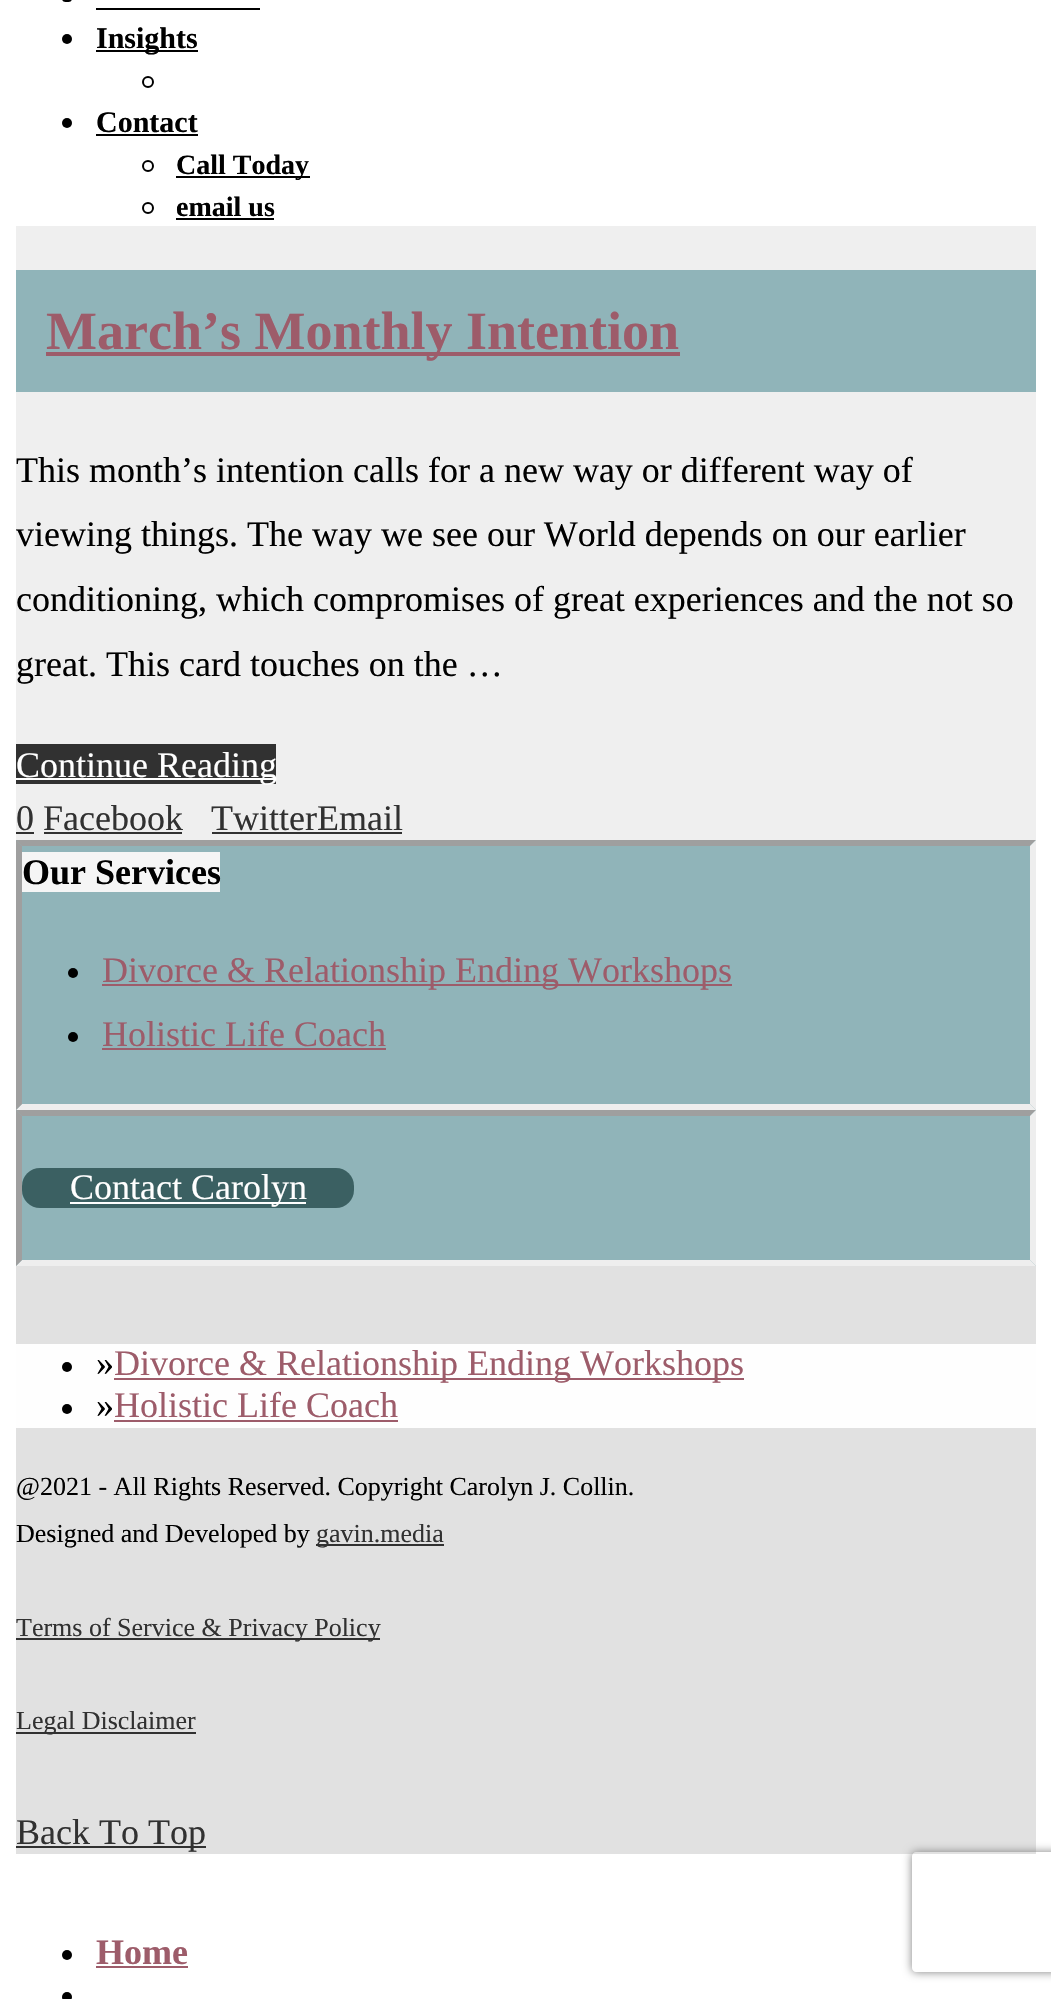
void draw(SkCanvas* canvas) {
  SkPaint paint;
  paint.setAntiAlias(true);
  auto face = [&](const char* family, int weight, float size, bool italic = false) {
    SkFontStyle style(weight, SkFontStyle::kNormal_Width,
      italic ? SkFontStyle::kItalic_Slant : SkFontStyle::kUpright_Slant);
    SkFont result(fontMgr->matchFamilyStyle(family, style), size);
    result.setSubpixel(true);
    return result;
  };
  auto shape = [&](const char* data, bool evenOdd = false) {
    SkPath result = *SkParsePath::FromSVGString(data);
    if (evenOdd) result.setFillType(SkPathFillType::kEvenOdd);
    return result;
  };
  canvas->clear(0xffffffff);
  paint.setColor(0xffefefef);
  canvas->drawRect(SkRect::MakeXYWH(16, 226, 1020, 614), paint);
  paint.setColor(0xff000000);
  canvas->drawRoundRect(SkRect::MakeXYWH(62, -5, 10, 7), 5, 5, paint);
  canvas->drawRect(SkRect::MakeXYWH(96, 8, 164, 2), paint);
  canvas->drawCircle(67, 39, 5, paint);
  canvas->drawRect(SkRect::MakeXYWH(96, 50, 102, 2), paint);
  paint.setStroke(true);
  paint.setStrokeWidth(2);
  canvas->drawCircle(148, 82, 5, paint);
  paint.setStroke(false);
  canvas->drawCircle(67, 123, 5, paint);
  canvas->drawRect(SkRect::MakeXYWH(96, 134, 102, 2), paint);
  paint.setStroke(true);
  canvas->drawCircle(148, 166, 5, paint);
  paint.setStroke(false);
  canvas->drawRect(SkRect::MakeXYWH(176, 176, 134, 2), paint);
  paint.setStroke(true);
  canvas->drawCircle(148, 208, 5, paint);
  paint.setStroke(false);
  {
    const struct { float x, y, w, h; SkColor color; } items[] = {
      {176, 218, 98, 2, 0xff000000},
      {16, 270, 1020, 122, 0xff90b4b9},
      {46, 352, 634, 4, 0xff9d5c6a},
      {16, 744, 260, 40, 0xff313131},
      {16, 778, 260, 2, 0xffffffff},
      {16, 832, 18, 2, 0xff313131},
      {212, 832, 190, 2, 0xff313131},
      {44, 832, 138, 2, 0xff313131},
      {16, 840, 1020, 426, 0xff90b4b9},
    };
    for (auto [x, y, w, h, color] : items) {
      paint.setColor(color);
      canvas->drawRect(SkRect::MakeXYWH(x, y, w, h), paint);
    }
  }
  paint.setColor(0xff9f9f9f);
  canvas->drawPath(shape("M16 840H1036L1030 846H22Z"), paint);
  paint.setColor(0xffeeeeee);
  canvas->drawPath(shape("M1036 840V1110L1030 1104V846Z"), paint);
  canvas->drawPath(shape("M1036 1110H16L22 1104H1030Z"), paint);
  paint.setColor(0xff9f9f9f);
  canvas->drawPath(shape("M16 1110V840L22 846V1104Z"), paint);
  paint.setColor(0xfff5f5f5);
  canvas->drawRect(SkRect::MakeXYWH(22, 852, 198, 40), paint);
  paint.setColor(0xff000000);
  canvas->drawCircle(73, 973, 5, paint);
  paint.setColor(0xff9d5c6a);
  canvas->drawRect(SkRect::MakeXYWH(102, 984, 630, 2), paint);
  paint.setColor(0xff000000);
  canvas->drawCircle(73, 1037, 5, paint);
  paint.setColor(0xff9d5c6a);
  canvas->drawRect(SkRect::MakeXYWH(102, 1048, 284, 2), paint);
  paint.setColor(0xff9f9f9f);
  canvas->drawPath(shape("M16 1110H1036L1030 1116H22Z"), paint);
  paint.setColor(0xffeeeeee);
  canvas->drawPath(shape("M1036 1110V1266L1030 1260V1116Z"), paint);
  canvas->drawPath(shape("M1036 1266H16L22 1260H1030Z"), paint);
  paint.setColor(0xff9f9f9f);
  canvas->drawPath(shape("M16 1266V1110L22 1116V1260Z"), paint);
  paint.setColor(0xff3b6062);
  canvas->drawRoundRect(SkRect::MakeXYWH(22, 1168, 332, 40), 18, 18, paint);
  {
    const struct { float x, y, w, h; SkColor color; } items[] = {
      {70, 1202, 236, 2, 0xffffffff},
      {16, 1266, 1020, 588, 0xffe1e1e1},
      {16, 1344, 1020, 84, 0xfffefefe},
    };
    for (auto [x, y, w, h, color] : items) {
      paint.setColor(color);
      canvas->drawRect(SkRect::MakeXYWH(x, y, w, h), paint);
    }
  }
  paint.setColor(0xff000000);
  canvas->drawCircle(67, 1367, 5, paint);
  paint.setColor(0xff9d5c6a);
  canvas->drawRect(SkRect::MakeXYWH(114, 1378, 630, 2), paint);
  paint.setColor(0xff000000);
  canvas->drawCircle(67, 1409, 5, paint);
  {
    const struct { float x, y, w, h; SkColor color; } items[] = {
      {114, 1420, 284, 2, 0xff9d5c6a},
      {316, 1544, 128, 2, 0xff313131},
      {16, 1638, 364, 2, 0xff313131},
      {16, 1732, 180, 2, 0xff313131},
      {16, 1846, 190, 2, 0xff313131},
    };
    for (auto [x, y, w, h, color] : items) {
      paint.setColor(color);
      canvas->drawRect(SkRect::MakeXYWH(x, y, w, h), paint);
    }
  }
  paint.setColor(0xff000000);
  canvas->drawCircle(67, 1955, 5, paint);
  paint.setColor(0xff9d5c6a);
  canvas->drawRect(SkRect::MakeXYWH(96, 1966, 92, 2), paint);
  paint.setColor(0xff000000);
  canvas->drawCircle(67, 1997, 5, paint);
  canvas->save();
  canvas->clipPath(shape("M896 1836H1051V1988H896ZM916 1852H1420C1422 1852 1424 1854 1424 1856V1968C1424 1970 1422 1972 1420 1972H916C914 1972 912 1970 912 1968V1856C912 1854 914 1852 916 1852Z", true), true);
  paint.setColor(0xff808080);
  paint.setMaskFilter(SkMaskFilter::MakeBlur(kNormal_SkBlurStyle, 5));
  canvas->drawRoundRect(SkRect::MakeXYWH(912, 1852, 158, 120), 4, 4, paint);
  paint.setMaskFilter(nullptr);
  canvas->restore();
  auto f0 = face("Liberation Serif", 700, 30);
  paint.setColor(0xff000000);
  canvas->drawString("Insights", 96, 48, f0, paint);
  canvas->drawString("Contact", 96, 132, f0, paint);
  auto f1 = face("Liberation Serif", 700, 28);
  canvas->drawString("Call Today", 176, 174, f1, paint);
  canvas->drawString("email us", 176, 216, f1, paint);
  auto f2 = face("Liberation Serif", 700, 54);
  paint.setColor(0xff9d5c6a);
  canvas->drawString("March’s Monthly Intention", 46, 349, f2, paint);
  auto f3 = face("Liberation Serif", 400, 36);
  paint.setColor(0xff000000);
  {
    const struct { const char* s; float x, y; } items[] = {
      {"This month’s intention calls for a new way or different way of", 16, 482},
      {"viewing things. The way we see our World depends on our earlier", 16, 546},
      {"conditioning, which compromises of great experiences and the not so", 16, 611},
      {"great. This card touches on the …", 16, 676},
    };
    for (auto [s, x, y] : items) {
      canvas->drawString(s, x, y, f3, paint);
    }
  }
  paint.setColor(0xffffffff);
  canvas->drawString("Continue Reading", 16, 777, f3, paint);
  paint.setColor(0xff313131);
  canvas->drawString("0 Facebook", 16, 830, f3, paint);
  canvas->drawString("TwitterEmail", 211, 830, f3, paint);
  auto f4 = face("Liberation Serif", 700, 36);
  paint.setColor(0xff000000);
  canvas->drawString("Our Services", 22, 884, f4, paint);
  paint.setColor(0xff9d5c6a);
  canvas->drawString("Divorce & Relationship Ending Workshops", 102, 982, f3, paint);
  canvas->drawString("Holistic Life Coach", 102, 1046, f3, paint);
  paint.setColor(0xffffffff);
  canvas->drawString("Contact Carolyn", 70, 1199, f3, paint);
  paint.setColor(0xff000000);
  canvas->drawString("»", 96, 1375, f3, paint);
  paint.setColor(0xff9d5c6a);
  canvas->drawString("Divorce & Relationship Ending Workshops", 114, 1375, f3, paint);
  paint.setColor(0xff000000);
  canvas->drawString("»", 96, 1417, f3, paint);
  paint.setColor(0xff9d5c6a);
  canvas->drawString("Holistic Life Coach", 114, 1417, f3, paint);
  auto f5 = face("Liberation Serif", 400, 26);
  paint.setColor(0xff000000);
  canvas->drawString("@2021 - All Rights Reserved. Copyright Carolyn J. Collin.", 16, 1495, f5, paint);
  canvas->drawString("Designed and Developed by", 16, 1542, f5, paint);
  paint.setColor(0xff313131);
  {
    const struct { const char* s; float x, y; } items[] = {
      {"gavin.media", 316, 1542},
      {"Terms of Service & Privacy Policy", 16, 1636},
      {"Legal Disclaimer", 16, 1729},
    };
    for (auto [s, x, y] : items) {
      canvas->drawString(s, x, y, f5, paint);
    }
  }
  canvas->drawString("Back To Top", 16, 1844, f3, paint);
  paint.setColor(0xff9d5c6a);
  canvas->drawString("Home", 96, 1964, f4, paint);
}
